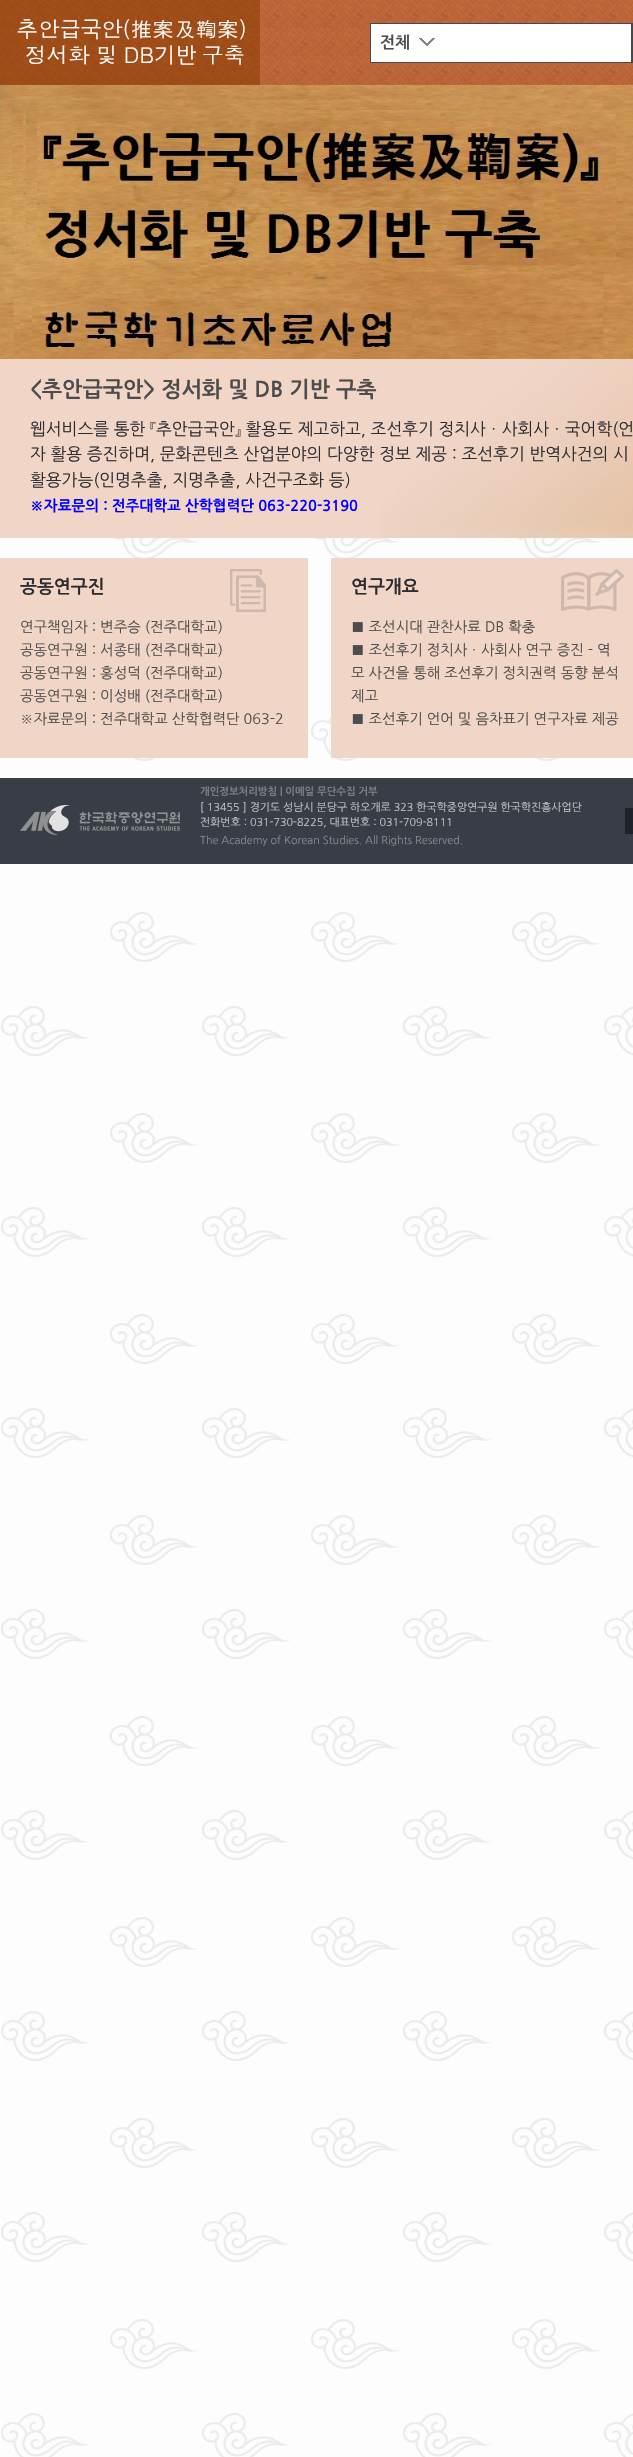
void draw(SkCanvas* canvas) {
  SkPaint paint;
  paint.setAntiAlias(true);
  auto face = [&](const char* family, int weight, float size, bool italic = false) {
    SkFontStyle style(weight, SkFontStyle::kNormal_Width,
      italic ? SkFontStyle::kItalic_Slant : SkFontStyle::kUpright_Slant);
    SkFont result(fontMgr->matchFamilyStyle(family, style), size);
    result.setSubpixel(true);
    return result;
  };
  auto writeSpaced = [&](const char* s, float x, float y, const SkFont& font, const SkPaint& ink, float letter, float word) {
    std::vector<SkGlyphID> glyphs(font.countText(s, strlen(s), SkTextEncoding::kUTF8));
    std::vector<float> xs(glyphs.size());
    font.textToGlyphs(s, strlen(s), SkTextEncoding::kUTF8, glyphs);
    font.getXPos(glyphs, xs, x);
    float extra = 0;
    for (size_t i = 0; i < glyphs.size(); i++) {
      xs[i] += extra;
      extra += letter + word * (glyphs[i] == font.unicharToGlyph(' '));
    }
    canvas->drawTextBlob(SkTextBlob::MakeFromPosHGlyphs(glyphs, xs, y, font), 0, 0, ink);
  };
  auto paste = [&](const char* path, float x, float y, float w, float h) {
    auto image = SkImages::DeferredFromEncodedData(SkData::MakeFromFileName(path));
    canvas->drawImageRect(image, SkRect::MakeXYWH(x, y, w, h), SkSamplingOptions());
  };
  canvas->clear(0xffffffff);
  paste("img/1.png", 1, 538, 632, 1919);
  paste("img/2.png", 260, 0, 373, 85);
  paste("img/3.png", 0, 0, 260, 85);
  paste("img/4.png", 370, 23, 263, 40);
  paste("img/5.png", 419, 38, 16, 8);
  paste("img/6.png", 0, 85, 633, 274);
  paint.setColor(0xfff1d5c7);
  canvas->drawRect(SkRect::MakeXYWH(0, 359, 633, 179), paint);
  paste("img/7.png", 379, 359, 254, 179);
  canvas->drawRect(SkRect::MakeXYWH(0, 558, 308, 200), paint);
  paste("img/8.png", 230, 569, 36, 43);
  canvas->drawRect(SkRect::MakeXYWH(331, 558, 302, 200), paint);
  paste("img/9.png", 561, 569, 63, 42);
  paint.setColor(0xff383d46);
  canvas->drawRect(SkRect::MakeXYWH(0, 778, 633, 86), paint);
  paste("img/10.png", 20, 805, 160, 30);
  paint.setColor(0xff1f2228);
  canvas->drawRect(SkRect::MakeXYWH(625, 808, 8, 26), paint);
  auto f0 = face("NanumGothic", 400, 21.6f);
  paint.setColor(0xffffffff);
  canvas->drawString("추", 17, 37, f0, paint);
  auto f1 = face("Dotum", 400, 21.6f);
  canvas->drawString("안급", 38, 37, f1, paint);
  canvas->drawString("국", 81, 37, f0, paint);
  canvas->drawString("안(推案及鞫案)", 101, 37, f1, paint);
  writeSpaced("정서화 및 DB기", 25, 63, f1, paint, 0, -1);
  canvas->drawString("반", 176, 63, f0, paint);
  canvas->drawString("구축", 202, 63, f1, paint);
  auto f2 = face("NanumGothic", 700, 16);
  paint.setColor(0xff4c4c4c);
  canvas->drawString("전체", 380, 48, f2, paint);
  auto f3 = face("NanumGothic", 700, 21.6f);
  canvas->drawString("<추안급국안> 정서화 및 DB 기반 구축", 30, 397, f3, paint);
  auto f4 = face("NanumGothic", 400, 16.8f);
  paint.setColor(0xff2c2c31);
  {
    const struct { const char* s; float x, y; } items[] = {
      {"웹서비스를 통한 『추안급국안』 활용도 제고하고, 조선후기 정치사ㆍ사회사ㆍ국어학(언", 30, 435},
      {"자 활용 증진하며, 문화콘텐츠 산업분야의 다양한 정보 제공 : 조선후기 반역사건의 시", 30, 460},
      {"활용가능(인명추출, 지명추출, 사건구조화 등)", 30, 486},
    };
    for (auto [s, x, y] : items) {
      canvas->drawString(s, x, y, f4, paint);
    }
  }
  auto f5 = face("NanumGothic", 700, 14.7f);
  paint.setColor(0xff0000ff);
  canvas->drawString("※자료문의 : 전주대학교 산학협력단 063-220-3190", 30, 511, f5, paint);
  auto f6 = face("NanumGothic", 700, 18);
  paint.setColor(0xff2c2c31);
  canvas->drawString("공동연구진", 20, 593, f6, paint);
  auto f7 = face("NanumGothic", 400, 14.4f);
  paint.setColor(0xff4c4c4c);
  {
    const struct { const char* s; float x, y; } items[] = {
      {"연구책임자 : 변주승 (전주대학교)", 20, 632},
      {"공동연구원 : 서종태 (전주대학교)", 20, 655},
      {"공동연구원 : 홍성덕 (전주대학교)", 20, 678},
      {"공동연구원 : 이성배 (전주대학교)", 20, 701},
      {"※자료문의 : 전주대학교 산학협력단 063-2", 20, 724},
    };
    for (auto [s, x, y] : items) {
      canvas->drawString(s, x, y, f7, paint);
    }
  }
  paint.setColor(0xff2c2c31);
  canvas->drawString("연구개요", 351, 593, f6, paint);
  paint.setColor(0xff4c4c4c);
  {
    const struct { const char* s; float x, y; } items[] = {
      {"■ 조선시대 관찬사료 DB 확충", 351, 632},
      {"■ 조선후기 정치사ㆍ사회사 연구 증진 - 역", 351, 655},
      {"모 사건을 통해 조선후기 정치권력 동향 분석", 351, 678},
      {"제고", 351, 701},
      {"■ 조선후기 언어 및 음차표기 연구자료 제공", 351, 724},
    };
    for (auto [s, x, y] : items) {
      canvas->drawString(s, x, y, f7, paint);
    }
  }
  auto f8 = face("NanumGothic", 700, 10.25f);
  paint.setColor(0xff808080);
  canvas->drawString("개인정보처리방침 | 이메일 무단수집 거부", 200, 795, f8, paint);
  auto f9 = face("NanumGothic", 400, 10.8f);
  paint.setColor(0xffc4c5c8);
  canvas->drawString("[ 13455 ] 경기도 성남시 분당구 하오개로 323 한국학중앙연구원 한국학진흥사업단", 200, 811, f9, paint);
  canvas->drawString("전화번호 : 031-730-8225, 대표번호 : 031-709-8111", 200, 826, f9, paint);
  paint.setColor(0xff888b90);
  canvas->drawString("The Academy of Korean Studies. All Rights Reserved.", 200, 844, f9, paint);
}
